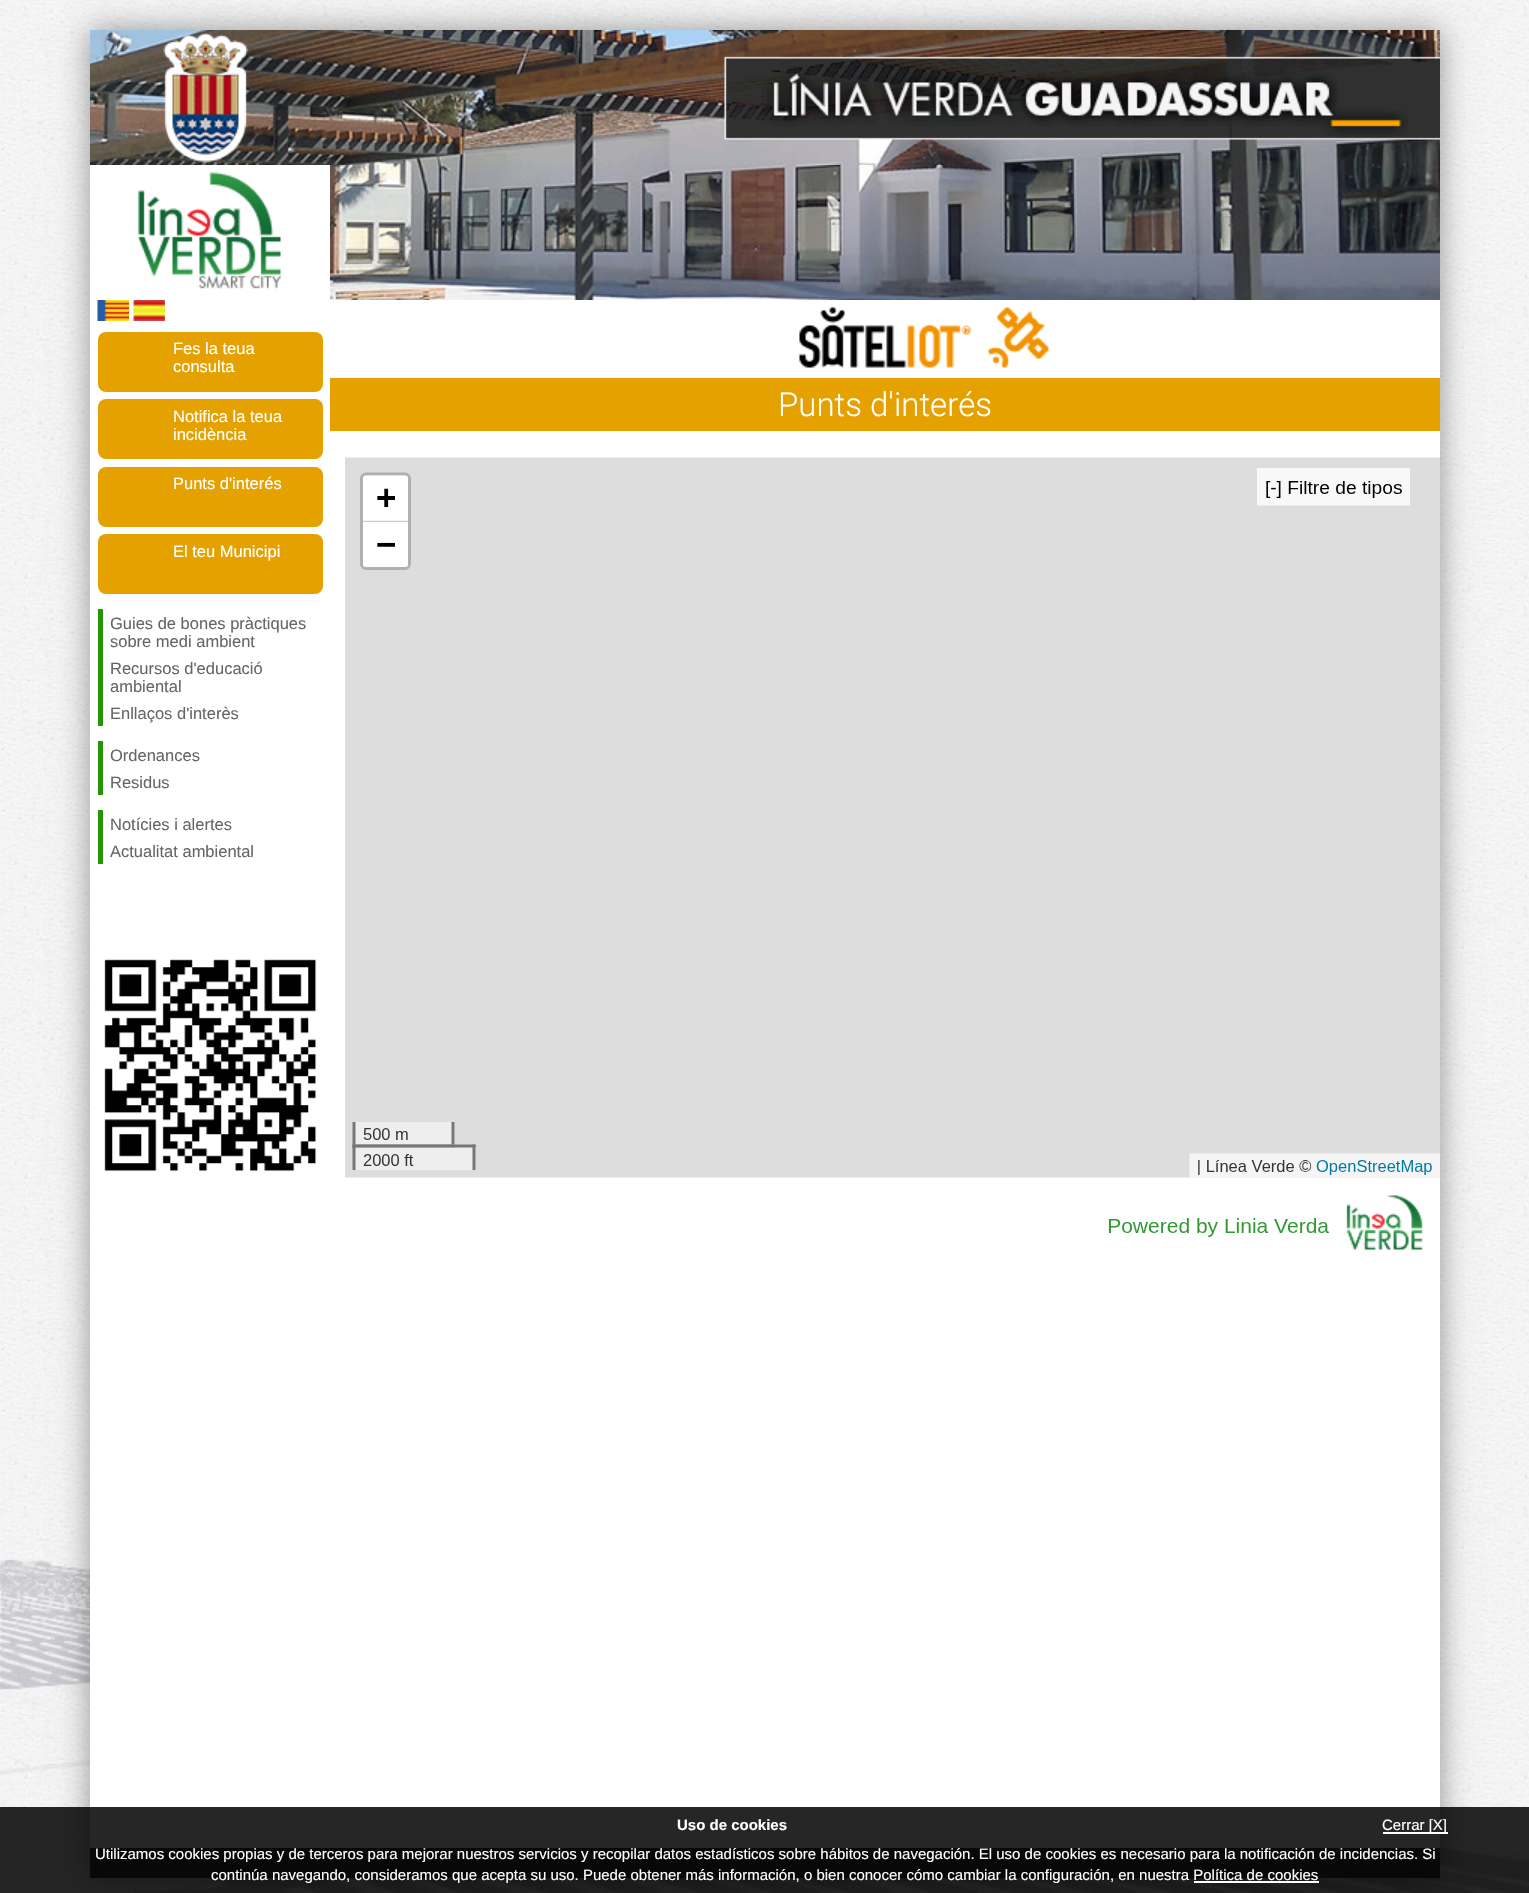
void draw(SkCanvas* canvas) {
  SkPaint paint;
  paint.setAntiAlias(true);
  auto face = [&](const char* family, int weight, float size, bool italic = false) {
    SkFontStyle style(weight, SkFontStyle::kNormal_Width,
      italic ? SkFontStyle::kItalic_Slant : SkFontStyle::kUpright_Slant);
    SkFont result(fontMgr->matchFamilyStyle(family, style), size);
    result.setSubpixel(true);
    return result;
  };
  auto paste = [&](const char* path, float x, float y, float w, float h) {
    auto image = SkImages::DeferredFromEncodedData(SkData::MakeFromFileName(path));
    canvas->drawImageRect(image, SkRect::MakeXYWH(x, y, w, h), SkSamplingOptions());
  };
  canvas->clear(0xffffffff);
  paste("img/1.png", 0, 0, 1529, 1893);
  paint.setColor(0x66000000);
  paint.setMaskFilter(SkMaskFilter::MakeBlur(kNormal_SkBlurStyle, 15));
  canvas->drawRect(SkRect::MakeXYWH(90, 30, 1350, 1848), paint);
  paint.setMaskFilter(nullptr);
  paint.setColor(0xffffffff);
  canvas->drawRect(SkRect::MakeXYWH(90, 165, 1350, 1683), paint);
  paste("img/2.png", 90, 30, 1350, 135);
  paste("img/3.png", 137, 172, 145, 117);
  paste("img/4.png", 330, 165, 1110, 135);
  paste("img/5.png", 799, 307, 250, 61);
  paste("img/6.png", 97, 300, 32, 21);
  paste("img/7.png", 133, 300, 32, 21);
  paint.setColor(0xffe5a100);
  canvas->drawRoundRect(SkRect::MakeXYWH(98, 332, 225, 60), 8, 8, paint);
  canvas->drawRoundRect(SkRect::MakeXYWH(98, 399, 225, 60), 8, 8, paint);
  canvas->drawRoundRect(SkRect::MakeXYWH(98, 467, 225, 60), 8, 8, paint);
  canvas->drawRoundRect(SkRect::MakeXYWH(98, 534, 225, 60), 8, 8, paint);
  {
    const struct { float x, y, w, h; SkColor color; } items[] = {
      {98, 609, 5, 117, 0xff259603},
      {98, 741, 5, 54, 0xff259603},
      {98, 810, 5, 54, 0xff259603},
    };
    for (auto [x, y, w, h, color] : items) {
      paint.setColor(color);
      canvas->drawRect(SkRect::MakeXYWH(x, y, w, h), paint);
    }
  }
  paste("img/8.png", 104, 959, 213, 213);
  paint.setColor(0xffe5a100);
  canvas->drawRect(SkRect::MakeXYWH(330, 378, 1110, 53), paint);
  paste("img/9.png", 345, 457, 1095, 793);
  {
    const struct { float x, y, w, h; SkColor color; } items[] = {
      {90, 1848, 1350, 30, 0xff333233},
      {0, 1807, 1529, 86, 0xd9000000},
      {1383, 1832, 65, 2, 0xffffffff},
      {1194, 1881, 125, 2, 0xffffffff},
    };
    for (auto [x, y, w, h, color] : items) {
      paint.setColor(color);
      canvas->drawRect(SkRect::MakeXYWH(x, y, w, h), paint);
    }
  }
  auto f0 = face("Liberation Sans", 400, 16.5f);
  {
    const struct { const char* s; float x, y; } items[] = {
      {"Fes la teua", 173, 354},
      {"consulta", 173, 372},
      {"Notifica la teua", 173, 422},
      {"incidència", 173, 440},
      {"Punts d'interés", 173, 489},
      {"El teu Municipi", 173, 557},
    };
    for (auto [s, x, y] : items) {
      canvas->drawString(s, x, y, f0, paint);
    }
  }
  paint.setColor(0xff666666);
  {
    const struct { const char* s; float x, y; } items[] = {
      {"Guies de bones pràctiques", 110, 629},
      {"sobre medi ambient", 110, 647},
      {"Recursos d'educació", 110, 674},
      {"ambiental", 110, 692},
      {"Enllaços d'interès", 110, 719},
      {"Ordenances", 110, 761},
      {"Residus", 110, 788},
      {"Notícies i alertes", 110, 830},
      {"Actualitat ambiental", 110, 857},
    };
    for (auto [s, x, y] : items) {
      canvas->drawString(s, x, y, f0, paint);
    }
  }
  auto f1 = face("Roboto", 300, 33);
  paint.setColor(0xffffffff);
  canvas->drawString("Punts d'interés", 778, 416, f1, paint);
  auto f2 = face("Liberation Sans", 700, 15);
  canvas->drawString("Uso de cookies", 677, 1830, f2, paint);
  auto f3 = face("Liberation Sans", 400, 15);
  {
    const struct { const char* s; float x, y; } items[] = {
      {"Cerrar [X]", 1382, 1830},
      {"Utilizamos cookies propias y de terceros para mejorar nuestros servicios y recopilar datos estadísticos sobre hábitos de navegación. El uso de cookies es necesario para la notificación de incidencias. Si", 95, 1859},
      {"continúa navegando, consideramos que acepta su uso. Puede obtener más información, o bien conocer cómo cambiar la configuración, en nuestra Política de cookies", 211, 1880},
    };
    for (auto [s, x, y] : items) {
      canvas->drawString(s, x, y, f3, paint);
    }
  }
}
